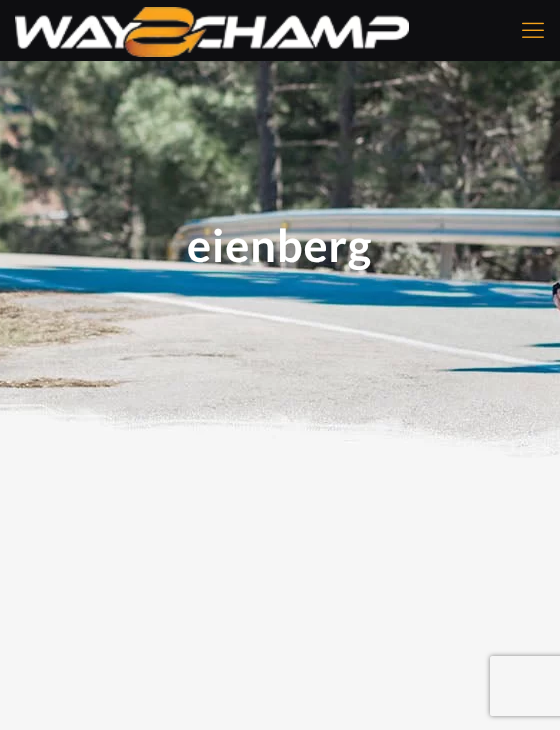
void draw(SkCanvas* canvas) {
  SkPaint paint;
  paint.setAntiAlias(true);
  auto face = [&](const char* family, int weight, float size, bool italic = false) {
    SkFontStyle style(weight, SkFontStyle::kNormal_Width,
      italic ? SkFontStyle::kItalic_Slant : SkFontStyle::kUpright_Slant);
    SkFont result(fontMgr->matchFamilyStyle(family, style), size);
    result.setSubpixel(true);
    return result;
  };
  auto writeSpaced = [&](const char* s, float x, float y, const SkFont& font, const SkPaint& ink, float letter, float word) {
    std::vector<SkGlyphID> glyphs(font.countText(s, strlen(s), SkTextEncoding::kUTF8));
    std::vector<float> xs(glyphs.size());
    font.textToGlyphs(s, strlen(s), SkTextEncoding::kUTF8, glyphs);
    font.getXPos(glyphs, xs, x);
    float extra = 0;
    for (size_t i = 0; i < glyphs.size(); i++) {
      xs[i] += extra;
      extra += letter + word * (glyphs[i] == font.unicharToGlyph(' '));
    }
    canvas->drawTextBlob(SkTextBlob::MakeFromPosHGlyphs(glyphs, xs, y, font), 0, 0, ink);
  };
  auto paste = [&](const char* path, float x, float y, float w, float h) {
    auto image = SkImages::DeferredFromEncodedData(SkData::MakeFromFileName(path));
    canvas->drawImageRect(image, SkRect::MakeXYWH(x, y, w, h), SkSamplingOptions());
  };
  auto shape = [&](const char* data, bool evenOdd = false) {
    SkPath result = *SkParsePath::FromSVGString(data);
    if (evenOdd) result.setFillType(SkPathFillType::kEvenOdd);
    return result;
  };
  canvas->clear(0xfff6f6f6);
  paste("img/1.png", 0, 61, 560, 397);
  paint.setColor(0xff0e0e11);
  canvas->drawRect(SkRect::MakeXYWH(0, 0, 560, 61), paint);
  paste("img/2.png", 15, 7, 394, 50);
  paste("img/3.png", 522, 22, 22, 16);
  canvas->save();
  canvas->clipPath(shape("M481 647H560V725H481ZM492 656H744C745 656 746 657 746 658V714C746 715 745 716 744 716H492C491 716 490 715 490 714V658C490 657 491 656 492 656Z", true), true);
  paint.setColor(0xff808080);
  paint.setMaskFilter(SkMaskFilter::MakeBlur(kNormal_SkBlurStyle, 2.5f));
  canvas->drawRoundRect(SkRect::MakeXYWH(490, 656, 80, 60), 2, 2, paint);
  paint.setMaskFilter(nullptr);
  canvas->restore();
  auto f0 = face("Lato", 700, 45);
  paint.setColor(0xffffffff);
  writeSpaced("eienberg", 187, 262, f0, paint, 1, 0);
}
